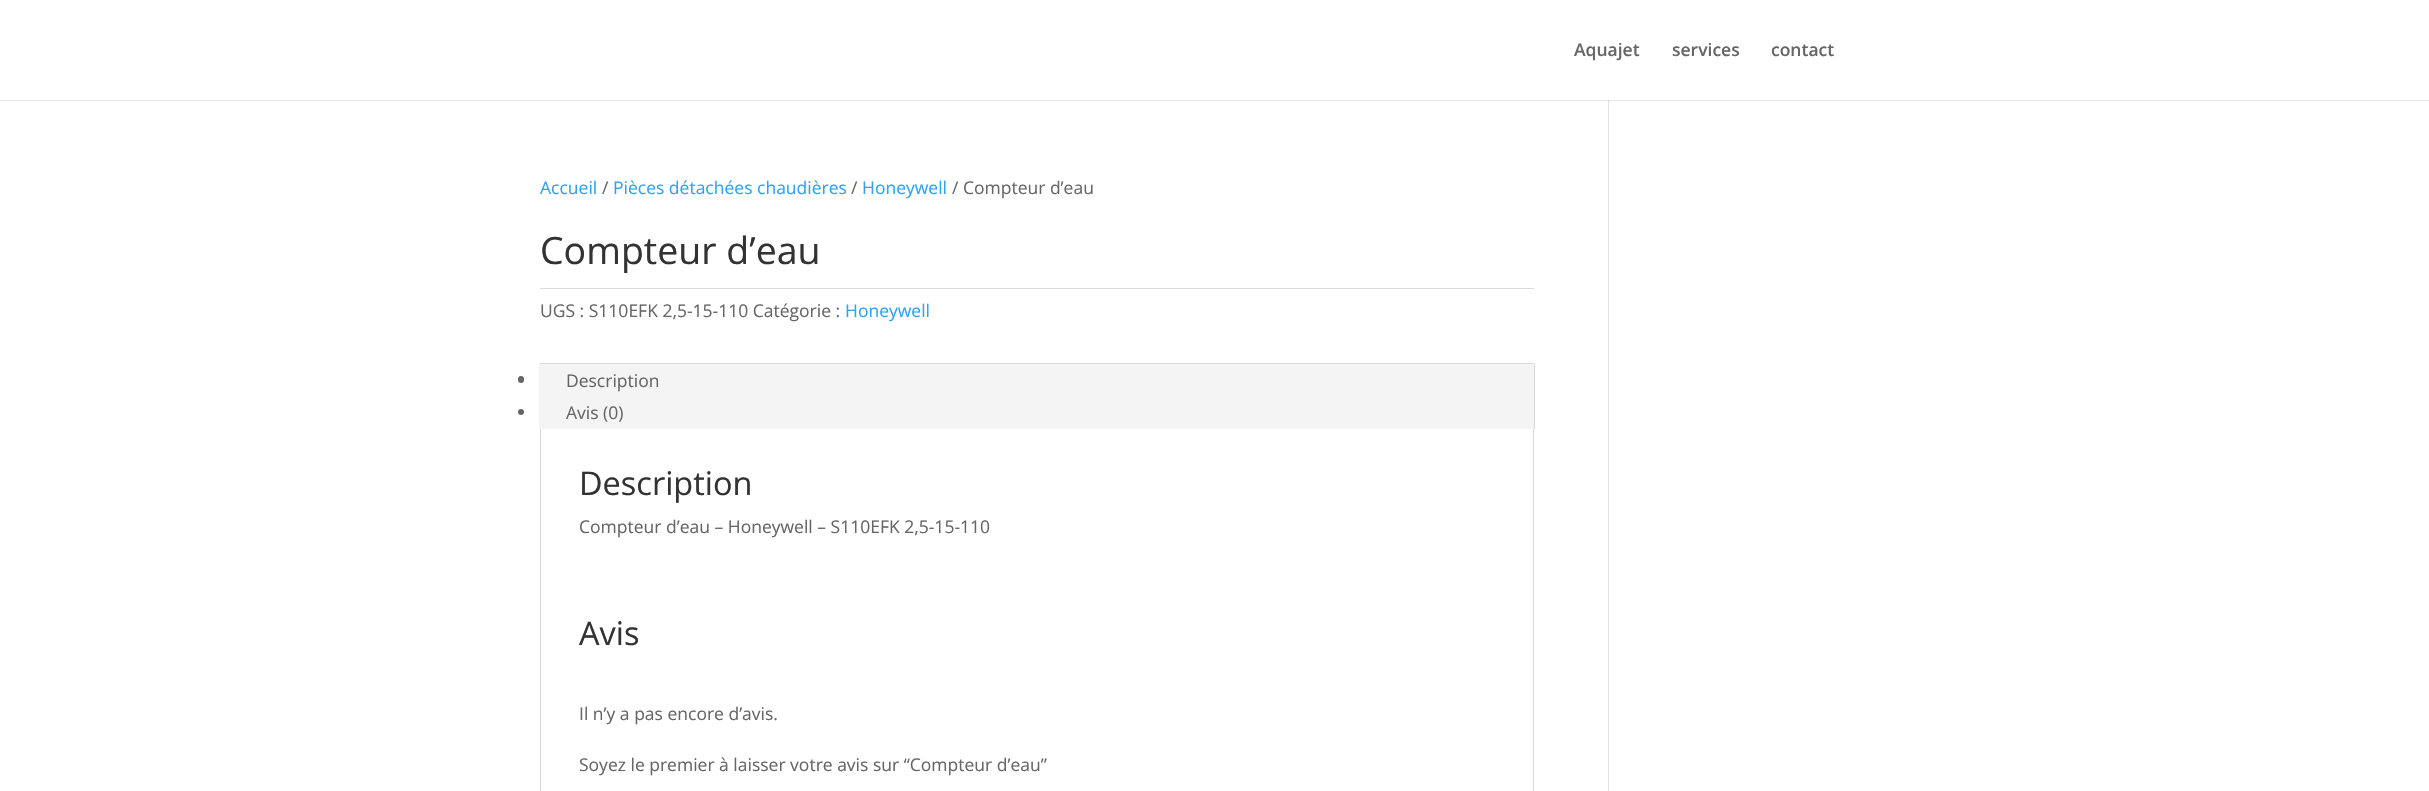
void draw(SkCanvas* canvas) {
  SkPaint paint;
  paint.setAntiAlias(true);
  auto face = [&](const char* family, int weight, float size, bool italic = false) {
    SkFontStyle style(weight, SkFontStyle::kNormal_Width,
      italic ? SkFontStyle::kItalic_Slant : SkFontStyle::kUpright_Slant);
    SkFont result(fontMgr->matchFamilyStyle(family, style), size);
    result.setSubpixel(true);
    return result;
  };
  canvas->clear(0xffffffff);
  paint.setColor(0xffe6e6e6);
  canvas->drawRect(SkRect::MakeXYWH(0, 100, 2429, 1), paint);
  paint.setColor(0xffdadada);
  canvas->drawRect(SkRect::MakeXYWH(540, 288, 994, 1), paint);
  paint.setStroke(true);
  paint.setStrokeWidth(1);
  paint.setColor(0xffd9d9d9);
  canvas->drawRect(SkRect::MakeXYWH(540.5f, 363.5f, 993, 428), paint);
  paint.setStroke(false);
  paint.setColor(0xfff4f4f4);
  canvas->drawRect(SkRect::MakeXYWH(539, 364, 995, 65), paint);
  paint.setColor(0xffd9d9d9);
  canvas->drawRect(SkRect::MakeXYWH(1534, 364, 1, 65), paint);
  paint.setColor(0xff666666);
  canvas->drawRoundRect(SkRect::MakeXYWH(518, 376, 6, 7), 3, 3, paint);
  canvas->drawCircle(521, 412, 3, paint);
  paint.setColor(0xffe2e2e2);
  canvas->drawRect(SkRect::MakeXYWH(1608, 100, 1, 691), paint);
  paint.setColor(0xffcbcbcb);
  canvas->drawRect(SkRect::MakeXYWH(1608, 100, 1, 1), paint);
  auto f0 = face("Open Sans", 600, 17.5f);
  paint.setColor(0xff666666);
  {
    const struct { const char* s; float x, y; } items[] = {
      {"Aquajet", 1574, 56},
      {"services", 1672, 56},
      {"contact", 1771, 56},
    };
    for (auto [s, x, y] : items) {
      canvas->drawString(s, x, y, f0, paint);
    }
  }
  auto f1 = face("Open Sans", 400, 17.5f);
  paint.setColor(0xff2ea3f2);
  canvas->drawString("Accueil", 540, 194, f1, paint);
  paint.setColor(0xff666666);
  canvas->drawString("/", 602, 194, f1, paint);
  paint.setColor(0xff2ea3f2);
  canvas->drawString("Pièces détachées chaudières", 613, 194, f1, paint);
  paint.setColor(0xff666666);
  canvas->drawString("/", 851, 194, f1, paint);
  paint.setColor(0xff2ea3f2);
  canvas->drawString("Honeywell", 862, 194, f1, paint);
  paint.setColor(0xff666666);
  canvas->drawString("/ Compteur d’eau", 952, 194, f1, paint);
  auto f2 = face("Open Sans", 400, 37.5f);
  paint.setColor(0xff333333);
  canvas->drawString("Compteur d’eau", 540, 264, f2, paint);
  paint.setColor(0xff666666);
  canvas->drawString("UGS : S110EFK 2,5-15-110 Catégorie :", 540, 317, f1, paint);
  paint.setColor(0xff2ea3f2);
  canvas->drawString("Honeywell", 845, 317, f1, paint);
  paint.setColor(0xff666666);
  canvas->drawString("Description", 566, 387, f1, paint);
  canvas->drawString("Avis (0)", 566, 419, f1, paint);
  auto f3 = face("Open Sans", 400, 32.5f);
  paint.setColor(0xff333333);
  canvas->drawString("Description", 579, 495, f3, paint);
  paint.setColor(0xff666666);
  canvas->drawString("Compteur d’eau – Honeywell – S110EFK 2,5-15-110", 579, 533, f1, paint);
  paint.setColor(0xff333333);
  canvas->drawString("Avis", 579, 645, f3, paint);
  paint.setColor(0xff666666);
  canvas->drawString("Il n’y a pas encore d’avis.", 579, 720, f1, paint);
  canvas->drawString("Soyez le premier à laisser votre avis sur “Compteur d’eau”", 579, 771, f1, paint);
}
